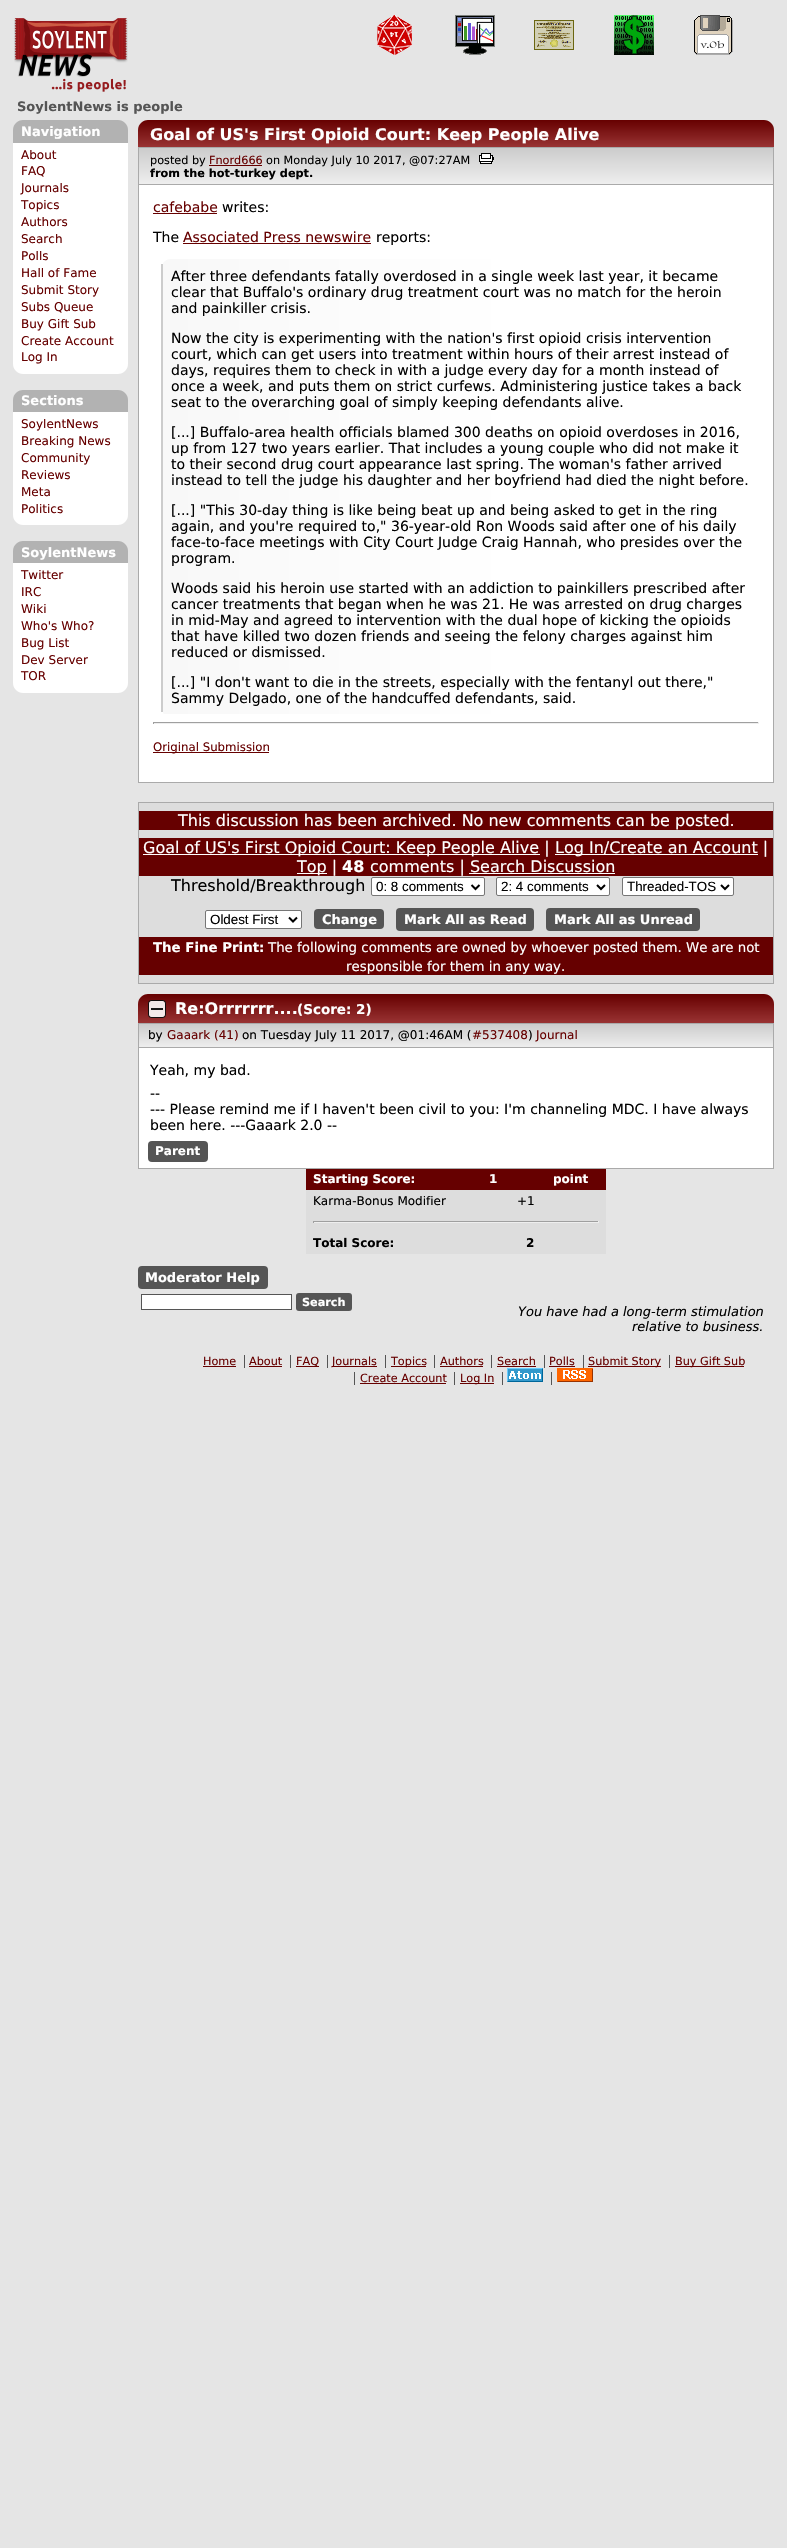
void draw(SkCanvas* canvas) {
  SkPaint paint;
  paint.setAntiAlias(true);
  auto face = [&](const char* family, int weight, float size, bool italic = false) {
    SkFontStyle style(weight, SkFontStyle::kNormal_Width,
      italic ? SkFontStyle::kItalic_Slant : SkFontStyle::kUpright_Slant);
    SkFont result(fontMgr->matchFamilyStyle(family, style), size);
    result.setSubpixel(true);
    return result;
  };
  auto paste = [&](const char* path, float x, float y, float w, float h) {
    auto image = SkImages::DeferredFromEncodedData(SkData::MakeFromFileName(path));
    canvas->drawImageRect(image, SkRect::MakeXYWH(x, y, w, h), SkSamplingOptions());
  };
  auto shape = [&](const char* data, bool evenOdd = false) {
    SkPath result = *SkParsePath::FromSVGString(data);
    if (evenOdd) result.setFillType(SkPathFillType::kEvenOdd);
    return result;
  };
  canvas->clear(0xffe5e5e5);
  paste("img/1.png", 14, 18, 114, 74);
  paste("img/2.png", 377, 15, 35, 40);
  paste("img/3.png", 455, 15, 40, 40);
  paste("img/4.png", 534, 20, 40, 30);
  paste("img/5.png", 614, 15, 40, 40);
  paste("img/6.png", 694, 15, 39, 40);
  paint.setColor(0xffb2b2b2);
  canvas->drawPath(shape("M23 120H118C123.5 120 128 124.5 128 130V143H13V130C13 124.5 17.5 120 23 120Z"), paint);
  paint.setColor(0xffffffff);
  canvas->drawPath(shape("M13 143H128V364C128 369.5 123.5 374 118 374H23C17.5 374 13 369.5 13 364Z"), paint);
  paint.setColor(0xffb2b2b2);
  canvas->drawPath(shape("M23 390H118C123.5 390 128 394.5 128 400V412H13V400C13 394.5 17.5 390 23 390Z"), paint);
  paint.setColor(0xffffffff);
  canvas->drawPath(shape("M13 412H128V515C128 520.5 123.5 525 118 525H23C17.5 525 13 520.5 13 515Z"), paint);
  paint.setColor(0xffb2b2b2);
  canvas->drawPath(shape("M23 541H118C123.5 541 128 545.5 128 551V563H13V551C13 545.5 17.5 541 23 541Z"), paint);
  paint.setColor(0xffffffff);
  canvas->drawPath(shape("M13 563H128V683C128 688.5 123.5 693 118 693H23C17.5 693 13 688.5 13 683Z"), paint);
  {
    const SkColor colors[] = {0xff660000, 0xff993333};
    const float stops[] = {0, 1};
    const SkPoint ends[] = {{456, 120}, {456, 147}};
    paint.setShader(SkGradientShader::MakeLinear(ends, colors, stops, 2, SkTileMode::kClamp));
    paint.setAlpha(255);
  }
  canvas->drawPath(shape("M148 120H764C769.5 120 774 124.5 774 130V147H138V130C138 124.5 142.5 120 148 120Z"), paint);
  {
    const SkColor colors[] = {0xffcccccc, 0xffeeeeee};
    const float stops[] = {0, 1};
    const SkPoint ends[] = {{456, 148}, {456, 184}};
    paint.setShader(SkGradientShader::MakeLinear(ends, colors, stops, 2, SkTileMode::kClamp));
    paint.setAlpha(255);
  }
  canvas->drawRect(SkRect::MakeXYWH(139, 148, 634, 36), paint);
  paint.setStroke(true);
  paint.setStrokeWidth(1);
  paint.setShader(nullptr);
  paint.setColor(0xffaaaaaa);
  canvas->drawRect(SkRect::MakeXYWH(138.5f, 147.5f, 635, 37), paint);
  paint.setStroke(false);
  paint.setColor(0xff660000);
  canvas->drawRect(SkRect::MakeXYWH(209, 165, 53, 1), paint);
  paste("img/7.png", 479, 153, 15, 11);
  {
    const struct { float x, y, w, h; SkColor color; } items[] = {
      {139, 185, 634, 597, 0xffffffff},
      {773, 185, 1, 598, 0xffaaaaaa},
      {138, 782, 636, 1, 0xffaaaaaa},
      {138, 185, 1, 598, 0xffaaaaaa},
      {153, 213, 64, 1, 0xff660000},
      {183, 243, 188, 1, 0xff660000},
    };
    for (auto [x, y, w, h, color] : items) {
      paint.setColor(color);
      canvas->drawRect(SkRect::MakeXYWH(x, y, w, h), paint);
    }
  }
  canvas->save();
  canvas->clipPath(shape("M171 259H751V714H166C163 714 161 712 161 709V269C161 263.5 165.5 259 171 259Z"), true);
  {
    const SkColor colors[] = {0xfff8f8f8, 0xffffffff};
    const float stops[] = {0, 0.6f};
    const SkPoint ends[] = {{163, 487}, {751, 487}};
    paint.setShader(SkGradientShader::MakeLinear(ends, colors, stops, 2, SkTileMode::kClamp));
    paint.setAlpha(255);
  }
  canvas->drawRect(SkRect::MakeXYWH(163, 259, 588, 455), paint);
  canvas->restore();
  paint.setShader(nullptr);
  {
    const struct { float x, y, w, h; SkColor color; } items[] = {
      {161, 264, 2, 448, 0xffcccccc},
      {153, 722, 606, 1, 0xff9f9f9f},
      {758, 722, 1, 2, 0xffeeeeee},
      {153, 723, 606, 1, 0xffeeeeee},
      {153, 722, 1, 2, 0xff9f9f9f},
      {153, 752, 116, 1, 0xff660000},
    };
    for (auto [x, y, w, h, color] : items) {
      paint.setColor(color);
      canvas->drawRect(SkRect::MakeXYWH(x, y, w, h), paint);
    }
  }
  paint.setColor(0xffdddddd);
  canvas->drawRect(SkRect::MakeXYWH(138.5f, 802.5f, 635, 181), paint);
  paint.setStroke(true);
  paint.setColor(0xffaaaaaa);
  canvas->drawRect(SkRect::MakeXYWH(138.5f, 802.5f, 635, 181), paint);
  paint.setStroke(false);
  {
    const struct { float x, y, w, h; SkColor color; } items[] = {
      {139, 811, 634, 19, 0xff660000},
      {139, 838, 634, 38, 0xff660000},
      {143, 854, 397, 1, 0xffffffff},
      {555, 854, 203, 1, 0xffffffff},
      {297, 873, 30, 1, 0xffffffff},
      {469, 873, 146, 1, 0xffffffff},
    };
    for (auto [x, y, w, h, color] : items) {
      paint.setColor(color);
      canvas->drawRect(SkRect::MakeXYWH(x, y, w, h), paint);
    }
  }
  canvas->drawRoundRect(SkRect::MakeXYWH(371.5f, 877.5f, 113, 18), 1.5f, 1.5f, paint);
  paint.setStroke(true);
  paint.setColor(0xff767676);
  canvas->drawRoundRect(SkRect::MakeXYWH(371.5f, 877.5f, 113, 18), 1.5f, 1.5f, paint);
  paint.setStrokeWidth(2);
  paint.setColor(0xff000000);
  canvas->drawPath(shape("M471.5 885L475.5 889L479.5 885"), paint);
  paint.setStroke(false);
  paint.setColor(0xffffffff);
  canvas->drawRoundRect(SkRect::MakeXYWH(496.5f, 877.5f, 113, 18), 1.5f, 1.5f, paint);
  paint.setStroke(true);
  paint.setStrokeWidth(1);
  paint.setColor(0xff767676);
  canvas->drawRoundRect(SkRect::MakeXYWH(496.5f, 877.5f, 113, 18), 1.5f, 1.5f, paint);
  paint.setStrokeWidth(2);
  paint.setColor(0xff000000);
  canvas->drawPath(shape("M597 885L601 889L605 885"), paint);
  paint.setStroke(false);
  paint.setColor(0xffffffff);
  canvas->drawRoundRect(SkRect::MakeXYWH(622.5f, 877.5f, 111, 18), 1.5f, 1.5f, paint);
  paint.setStroke(true);
  paint.setStrokeWidth(1);
  paint.setColor(0xff767676);
  canvas->drawRoundRect(SkRect::MakeXYWH(622.5f, 877.5f, 111, 18), 1.5f, 1.5f, paint);
  paint.setStrokeWidth(2);
  paint.setColor(0xff000000);
  canvas->drawPath(shape("M721 885L725 889L729 885"), paint);
  paint.setStroke(false);
  paint.setColor(0xffffffff);
  canvas->drawRoundRect(SkRect::MakeXYWH(205.5f, 910.5f, 96, 18), 1.5f, 1.5f, paint);
  paint.setStroke(true);
  paint.setStrokeWidth(1);
  paint.setColor(0xff767676);
  canvas->drawRoundRect(SkRect::MakeXYWH(205.5f, 910.5f, 96, 18), 1.5f, 1.5f, paint);
  paint.setStrokeWidth(2);
  paint.setColor(0xff000000);
  canvas->drawPath(shape("M289 917.5L293 921.5L297 917.5"), paint);
  paint.setStroke(false);
  paint.setColor(0xff555555);
  canvas->drawRoundRect(SkRect::MakeXYWH(314, 909, 70, 20), 4, 4, paint);
  canvas->drawRoundRect(SkRect::MakeXYWH(396, 908, 138, 23), 4, 4, paint);
  canvas->drawRoundRect(SkRect::MakeXYWH(546, 908, 154, 23), 4, 4, paint);
  paint.setColor(0xff660000);
  canvas->drawRect(SkRect::MakeXYWH(139, 937, 634, 38), paint);
  {
    const SkColor colors[] = {0xff660000, 0xff993333};
    const float stops[] = {0, 1};
    const SkPoint ends[] = {{456, 994}, {456, 1023}};
    paint.setShader(SkGradientShader::MakeLinear(ends, colors, stops, 2, SkTileMode::kClamp));
    paint.setAlpha(255);
  }
  canvas->drawPath(shape("M148 994H764C769.5 994 774 998.5 774 1004V1023H138V1004C138 998.5 142.5 994 148 994Z"), paint);
  paste("img/8.png", 148, 1000, 18, 18);
  {
    const SkColor colors[] = {0xffcccccc, 0xffeeeeee};
    const float stops[] = {0, 1};
    const SkPoint ends[] = {{456, 1024}, {456, 1047}};
    paint.setShader(SkGradientShader::MakeLinear(ends, colors, stops, 2, SkTileMode::kClamp));
    paint.setAlpha(255);
  }
  canvas->drawRect(SkRect::MakeXYWH(139, 1024, 634, 23), paint);
  paint.setStroke(true);
  paint.setStrokeWidth(1);
  paint.setShader(nullptr);
  paint.setColor(0xffaaaaaa);
  canvas->drawRect(SkRect::MakeXYWH(138.5f, 1023.5f, 635, 24), paint);
  paint.setStroke(false);
  {
    const struct { float x, y, w, h; SkColor color; } items[] = {
      {139, 1048, 634, 120, 0xffffffff},
      {773, 1048, 1, 121, 0xffaaaaaa},
      {138, 1048, 1, 87, 0xffaaaaaa},
      {138, 1168, 636, 1, 0xffaaaaaa},
      {138, 1135, 1, 34, 0xffaaaaaa},
    };
    for (auto [x, y, w, h, color] : items) {
      paint.setColor(color);
      canvas->drawRect(SkRect::MakeXYWH(x, y, w, h), paint);
    }
  }
  paint.setColor(0xff555555);
  canvas->drawRoundRect(SkRect::MakeXYWH(148, 1141, 60, 21), 4, 4, paint);
  {
    const struct { float x, y, w, h; SkColor color; } items[] = {
      {306, 1169, 300, 21, 0xff660000},
      {306, 1190, 300, 64, 0xffdddddd},
      {313, 1221, 286, 1, 0xff9f9f9f},
      {598, 1221, 1, 2, 0xffeeeeee},
      {313, 1222, 286, 1, 0xffeeeeee},
      {313, 1221, 1, 2, 0xff9f9f9f},
    };
    for (auto [x, y, w, h, color] : items) {
      paint.setColor(color);
      canvas->drawRect(SkRect::MakeXYWH(x, y, w, h), paint);
    }
  }
  paint.setColor(0xff555555);
  canvas->drawRoundRect(SkRect::MakeXYWH(138, 1266, 130, 23), 4, 4, paint);
  paint.setColor(0xffffffff);
  canvas->drawRect(SkRect::MakeXYWH(141.5f, 1294.5f, 150, 15), paint);
  paint.setStroke(true);
  paint.setColor(0xff555555);
  canvas->drawRect(SkRect::MakeXYWH(141.5f, 1294.5f, 150, 15), paint);
  paint.setStroke(false);
  canvas->drawRoundRect(SkRect::MakeXYWH(296, 1293, 56, 18), 3, 3, paint);
  {
    const struct { float x, y, w, h; SkColor color; } items[] = {
      {203, 1366, 33, 1, 0xff660000},
      {244, 1355, 1, 13, 0xff555555},
      {249, 1366, 33, 1, 0xff660000},
      {290, 1355, 1, 13, 0xff555555},
      {296, 1366, 23, 1, 0xff660000},
      {327, 1355, 1, 13, 0xff555555},
      {332, 1366, 45, 1, 0xff660000},
      {385, 1355, 1, 13, 0xff555555},
      {391, 1366, 35, 1, 0xff660000},
      {434, 1355, 1, 13, 0xff555555},
      {440, 1366, 43, 1, 0xff660000},
      {491, 1355, 1, 13, 0xff555555},
      {497, 1366, 39, 1, 0xff660000},
      {544, 1355, 1, 13, 0xff555555},
      {549, 1366, 26, 1, 0xff660000},
      {583, 1355, 1, 13, 0xff555555},
      {588, 1366, 73, 1, 0xff660000},
      {669, 1355, 1, 13, 0xff555555},
      {675, 1366, 69, 1, 0xff660000},
      {354, 1372, 1, 13, 0xff555555},
      {360, 1383, 86, 1, 0xff660000},
      {454, 1372, 1, 13, 0xff555555},
      {460, 1383, 34, 1, 0xff660000},
      {502, 1372, 1, 13, 0xff555555},
    };
    for (auto [x, y, w, h, color] : items) {
      paint.setColor(color);
      canvas->drawRect(SkRect::MakeXYWH(x, y, w, h), paint);
    }
  }
  paste("img/9.png", 507, 1368, 36, 14);
  canvas->drawRect(SkRect::MakeXYWH(551, 1372, 1, 13), paint);
  paste("img/10.png", 557, 1368, 36, 14);
  auto f0 = face("DejaVu Sans", 700, 13);
  canvas->drawString("SoylentNews is people", 17, 111, f0, paint);
  paint.setColor(0xffffffff);
  canvas->drawString("Navigation", 21, 136, f0, paint);
  auto f1 = face("DejaVu Sans", 400, 12);
  paint.setColor(0xff660000);
  {
    const struct { const char* s; float x, y; } items[] = {
      {"About", 21, 159},
      {"FAQ", 21, 175},
      {"Journals", 21, 192},
      {"Topics", 21, 209},
      {"Authors", 21, 226},
      {"Search", 21, 243},
      {"Polls", 21, 260},
      {"Hall of Fame", 21, 277},
      {"Submit Story", 21, 294},
      {"Subs Queue", 21, 311},
      {"Buy Gift Sub", 21, 328},
      {"Create Account", 21, 345},
      {"Log In", 21, 361},
    };
    for (auto [s, x, y] : items) {
      canvas->drawString(s, x, y, f1, paint);
    }
  }
  paint.setColor(0xffffffff);
  canvas->drawString("Sections", 21, 405, f0, paint);
  paint.setColor(0xff660000);
  {
    const struct { const char* s; float x, y; } items[] = {
      {"SoylentNews", 21, 428},
      {"Breaking News", 21, 445},
      {"Community", 21, 462},
      {"Reviews", 21, 479},
      {"Meta", 21, 496},
      {"Politics", 21, 513},
    };
    for (auto [s, x, y] : items) {
      canvas->drawString(s, x, y, f1, paint);
    }
  }
  paint.setColor(0xffffffff);
  canvas->drawString("SoylentNews", 21, 557, f0, paint);
  paint.setColor(0xff660000);
  {
    const struct { const char* s; float x, y; } items[] = {
      {"Twitter", 21, 579},
      {"IRC", 21, 596},
      {"Wiki", 21, 613},
      {"Who's Who?", 21, 630},
      {"Bug List", 21, 647},
      {"Dev Server", 21, 664},
      {"TOR", 21, 680},
    };
    for (auto [s, x, y] : items) {
      canvas->drawString(s, x, y, f1, paint);
    }
  }
  auto f2 = face("DejaVu Sans", 700, 16);
  paint.setColor(0xffffffff);
  canvas->drawString("Goal of US's First Opioid Court: Keep People Alive", 150, 140, f2, paint);
  auto f3 = face("DejaVu Sans", 400, 11.25f);
  paint.setColor(0xff000000);
  canvas->drawString("posted by", 150, 164, f3, paint);
  paint.setColor(0xff660000);
  canvas->drawString("Fnord666", 209, 164, f3, paint);
  paint.setColor(0xff000000);
  canvas->drawString("on Monday July 10 2017, @07:27AM", 266, 164, f3, paint);
  auto f4 = face("DejaVu Sans", 700, 11.25f);
  canvas->drawString("from the hot-turkey dept.", 150, 177, f4, paint);
  auto f5 = face("DejaVu Sans", 400, 14);
  paint.setColor(0xff660000);
  canvas->drawString("cafebabe", 153, 212, f5, paint);
  paint.setColor(0xff000000);
  canvas->drawString("writes:", 222, 212, f5, paint);
  canvas->drawString("The", 153, 242, f5, paint);
  paint.setColor(0xff660000);
  canvas->drawString("Associated Press newswire", 183, 242, f5, paint);
  paint.setColor(0xff000000);
  {
    const struct { const char* s; float x, y; } items[] = {
      {"reports:", 376, 242},
      {"After three defendants fatally overdosed in a single week last year, it became", 171, 281},
      {"clear that Buffalo's ordinary drug treatment court was no match for the heroin", 171, 297},
      {"and painkiller crisis.", 171, 313},
      {"Now the city is experimenting with the nation's first opioid crisis intervention", 171, 343},
      {"court, which can get users into treatment within hours of their arrest instead of", 171, 359},
      {"days, requires them to check in with a judge every day for a month instead of", 171, 375},
      {"once a week, and puts them on strict curfews. Administering justice takes a back", 171, 391},
      {"seat to the overarching goal of simply keeping defendants alive.", 171, 407},
      {"[...] Buffalo-area health officials blamed 300 deaths on opioid overdoses in 2016,", 171, 437},
      {"up from 127 two years earlier. That includes a young couple who did not make it", 171, 453},
      {"to their second drug court appearance last spring. The woman's father arrived", 171, 469},
      {"instead to tell the judge his daughter and her boyfriend had died the night before.", 171, 485},
      {"[...] \"This 30-day thing is like being beat up and being asked to get in the ring", 171, 515},
      {"again, and you're required to,\" 36-year-old Ron Woods said after one of his daily", 171, 531},
      {"face-to-face meetings with City Court Judge Craig Hannah, who presides over the", 171, 547},
      {"program.", 171, 563},
      {"Woods said his heroin use started with an addiction to painkillers prescribed after", 171, 593},
      {"cancer treatments that began when he was 21. He was arrested on drug charges", 171, 609},
      {"in mid-May and agreed to intervention with the dual hope of kicking the opioids", 171, 625},
      {"that have killed two dozen friends and seeing the felony charges against him", 171, 641},
      {"reduced or dismissed.", 171, 657},
      {"[...] \"I don't want to die in the streets, especially with the fentanyl out there,\"", 171, 687},
      {"Sammy Delgado, one of the handcuffed defendants, said.", 171, 703},
    };
    for (auto [s, x, y] : items) {
      canvas->drawString(s, x, y, f5, paint);
    }
  }
  auto f6 = face("DejaVu Sans", 400, 11.75f);
  paint.setColor(0xff660000);
  canvas->drawString("Original Submission", 153, 751, f6, paint);
  auto f7 = face("DejaVu Sans", 400, 16);
  paint.setColor(0xffffffff);
  {
    const struct { const char* s; float x, y; } items[] = {
      {"This discussion has been archived. No new comments can be posted.", 178, 826},
      {"Goal of US's First Opioid Court: Keep People Alive |", 143, 853},
      {"Log In/Create an Account |", 555, 853},
      {"Top |", 297, 872},
    };
    for (auto [s, x, y] : items) {
      canvas->drawString(s, x, y, f7, paint);
    }
  }
  canvas->drawString("48", 342, 872, f2, paint);
  canvas->drawString("comments | Search Discussion", 370, 872, f7, paint);
  paint.setColor(0xff000000);
  canvas->drawString("Threshold/Breakthrough", 171, 891, f7, paint);
  auto f8 = face("Liberation Sans", 400, 13.35f);
  {
    const struct { const char* s; float x, y; } items[] = {
      {"0: 8 comments", 376, 891},
      {"2: 4 comments", 501, 891},
      {"Threaded-TOS", 627, 891},
      {"Oldest First", 210, 924},
    };
    for (auto [s, x, y] : items) {
      canvas->drawString(s, x, y, f8, paint);
    }
  }
  paint.setColor(0xffffffff);
  {
    const struct { const char* s; float x, y; } items[] = {
      {"Change", 322, 924},
      {"Mark All as Read", 404, 924},
      {"Mark All as Unread", 554, 924},
    };
    for (auto [s, x, y] : items) {
      canvas->drawString(s, x, y, f0, paint);
    }
  }
  auto f9 = face("DejaVu Sans", 700, 13.35f);
  canvas->drawString("The Fine Print:", 153, 952, f9, paint);
  auto f10 = face("DejaVu Sans", 400, 13.35f);
  canvas->drawString("The following comments are owned by whoever posted them. We are not", 268, 952, f10, paint);
  canvas->drawString("responsible for them in any way.", 346, 971, f10, paint);
  canvas->drawString("Re:Orrrrrrr....", 175, 1014, f2, paint);
  auto f11 = face("DejaVu Sans", 700, 13.5f);
  canvas->drawString("(Score: 2)", 297, 1014, f11, paint);
  paint.setColor(0xff000000);
  canvas->drawString("by", 148, 1039, f1, paint);
  paint.setColor(0xff660000);
  canvas->drawString("Gaaark (41)", 167, 1039, f1, paint);
  paint.setColor(0xff000000);
  canvas->drawString("on Tuesday July 11 2017, @01:46AM (", 242, 1039, f1, paint);
  paint.setColor(0xff660000);
  canvas->drawString("#537408", 472, 1039, f1, paint);
  paint.setColor(0xff000000);
  canvas->drawString(")", 528, 1039, f1, paint);
  paint.setColor(0xff660000);
  canvas->drawString("Journal", 536, 1039, f1, paint);
  paint.setColor(0xff000000);
  {
    const struct { const char* s; float x, y; } items[] = {
      {"Yeah, my bad.", 150, 1075},
      {"--", 150, 1098},
      {"--- Please remind me if I haven't been civil to you: I'm channeling MDC. I have always", 150, 1114},
      {"been here. ---Gaaark 2.0 --", 150, 1130},
    };
    for (auto [s, x, y] : items) {
      canvas->drawString(s, x, y, f5, paint);
    }
  }
  auto f12 = face("DejaVu Sans", 700, 12);
  paint.setColor(0xffffffff);
  {
    const struct { const char* s; float x, y; } items[] = {
      {"Parent", 155, 1155},
      {"Starting Score:", 313, 1183},
      {"1", 489, 1183},
      {"point", 553, 1183},
    };
    for (auto [s, x, y] : items) {
      canvas->drawString(s, x, y, f12, paint);
    }
  }
  paint.setColor(0xff000000);
  canvas->drawString("Karma-Bonus Modifier", 313, 1205, f1, paint);
  canvas->drawString("+1", 517, 1205, f1, paint);
  canvas->drawString("Total Score:", 313, 1247, f12, paint);
  canvas->drawString("2", 526, 1247, f12, paint);
  paint.setColor(0xffffffff);
  canvas->drawString("Moderator Help", 145, 1282, f0, paint);
  canvas->drawString("Search", 302, 1306, f4, paint);
  auto f13 = face("DejaVu Sans", 400, 13, true);
  paint.setColor(0xff000000);
  canvas->drawString("You have had a long-term stimulation", 518, 1316, f13, paint);
  canvas->drawString("relative to business.", 632, 1331, f13, paint);
  paint.setColor(0xff660000);
  {
    const struct { const char* s; float x, y; } items[] = {
      {"Home", 203, 1365},
      {"About", 249, 1365},
      {"FAQ", 296, 1365},
      {"Journals", 332, 1365},
      {"Topics", 391, 1365},
      {"Authors", 440, 1365},
      {"Search", 497, 1365},
      {"Polls", 549, 1365},
      {"Submit Story", 588, 1365},
      {"Buy Gift Sub", 675, 1365},
      {"Create Account", 360, 1382},
      {"Log In", 460, 1382},
    };
    for (auto [s, x, y] : items) {
      canvas->drawString(s, x, y, f3, paint);
    }
  }
}
